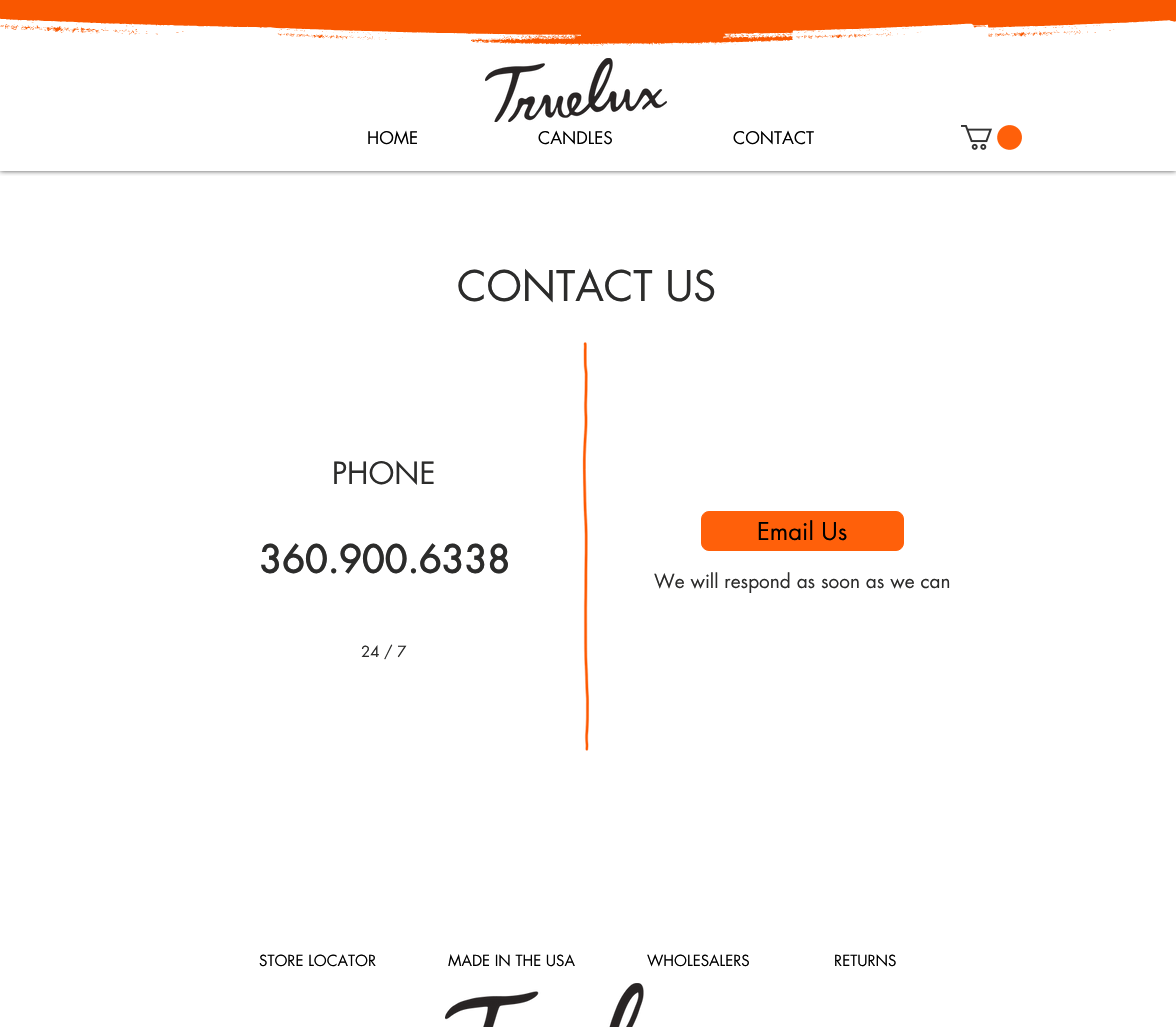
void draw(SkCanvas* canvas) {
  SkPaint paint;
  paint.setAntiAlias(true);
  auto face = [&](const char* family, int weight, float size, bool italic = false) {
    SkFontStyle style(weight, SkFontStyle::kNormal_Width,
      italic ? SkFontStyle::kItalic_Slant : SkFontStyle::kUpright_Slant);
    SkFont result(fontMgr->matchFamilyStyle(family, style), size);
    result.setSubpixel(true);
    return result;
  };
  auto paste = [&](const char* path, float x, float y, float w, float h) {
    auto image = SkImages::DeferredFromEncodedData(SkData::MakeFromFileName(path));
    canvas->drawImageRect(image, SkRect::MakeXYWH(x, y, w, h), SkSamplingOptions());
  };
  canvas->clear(0xffffffff);
  canvas->save();
  canvas->clipRect(SkRect::MakeXYWH(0, 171, 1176, 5));
  paint.setColor(0xb3000000);
  paint.setMaskFilter(SkMaskFilter::MakeBlur(kNormal_SkBlurStyle, 2.5f));
  canvas->drawRect(SkRect::MakeXYWH(0, 0, 1176, 171), paint);
  paint.setMaskFilter(nullptr);
  canvas->restore();
  paint.setColor(0xfff95700);
  canvas->drawRect(SkRect::MakeXYWH(0, 0, 1176, 46), paint);
  paste("img/1.png", 0, 18, 1176, 50);
  paste("img/2.png", 485, 58, 182, 64);
  paste("img/3.png", 961, 125, 61, 25);
  paste("img/4.png", 582, 342, 8, 409);
  paint.setColor(0xffff600a);
  canvas->drawRoundRect(SkRect::MakeXYWH(701.5f, 511.5f, 202, 39), 7.5f, 7.5f, paint);
  paint.setStroke(true);
  paint.setStrokeWidth(1);
  canvas->drawRoundRect(SkRect::MakeXYWH(701.5f, 511.5f, 202, 39), 7.5f, 7.5f, paint);
  paste("img/5.png", 445, 983, 199, 44);
  auto f0 = face("futura", 400, 17);
  paint.setStroke(false);
  paint.setColor(0xff000000);
  {
    const struct { const char* s; float x, y; } items[] = {
      {"HOME", 367, 144},
      {"CANDLES", 538, 144},
      {"CONTACT", 733, 144},
    };
    for (auto [s, x, y] : items) {
      canvas->drawString(s, x, y, f0, paint);
    }
  }
  auto f1 = face("futura", 400, 41);
  paint.setColor(0xff2c2c2b);
  canvas->drawString("CONTACT US", 457, 301, f1, paint);
  auto f2 = face("futura", 400, 30);
  canvas->drawString("PHONE", 332, 484, f2, paint);
  auto f3 = face("futura", 700, 37);
  canvas->drawString("360.900.6338", 259, 573, f3, paint);
  auto f4 = face("futura", 400, 15);
  canvas->drawString("24 / 7", 361, 657, f4, paint);
  auto f5 = face("futura", 400, 24);
  paint.setColor(0xff000000);
  canvas->drawString("Email Us", 757, 540, f5, paint);
  auto f6 = face("futura", 400, 19);
  paint.setColor(0xff2c2c2b);
  canvas->drawString("We will respond as soon as we can", 654, 588, f6, paint);
  paint.setColor(0xff000000);
  {
    const struct { const char* s; float x, y; } items[] = {
      {"STORE LOCATOR", 259, 966},
      {"MADE IN THE USA", 448, 966},
      {"WHOLESALERS", 647, 966},
      {"RETURNS", 834, 966},
    };
    for (auto [s, x, y] : items) {
      canvas->drawString(s, x, y, f4, paint);
    }
  }
}
